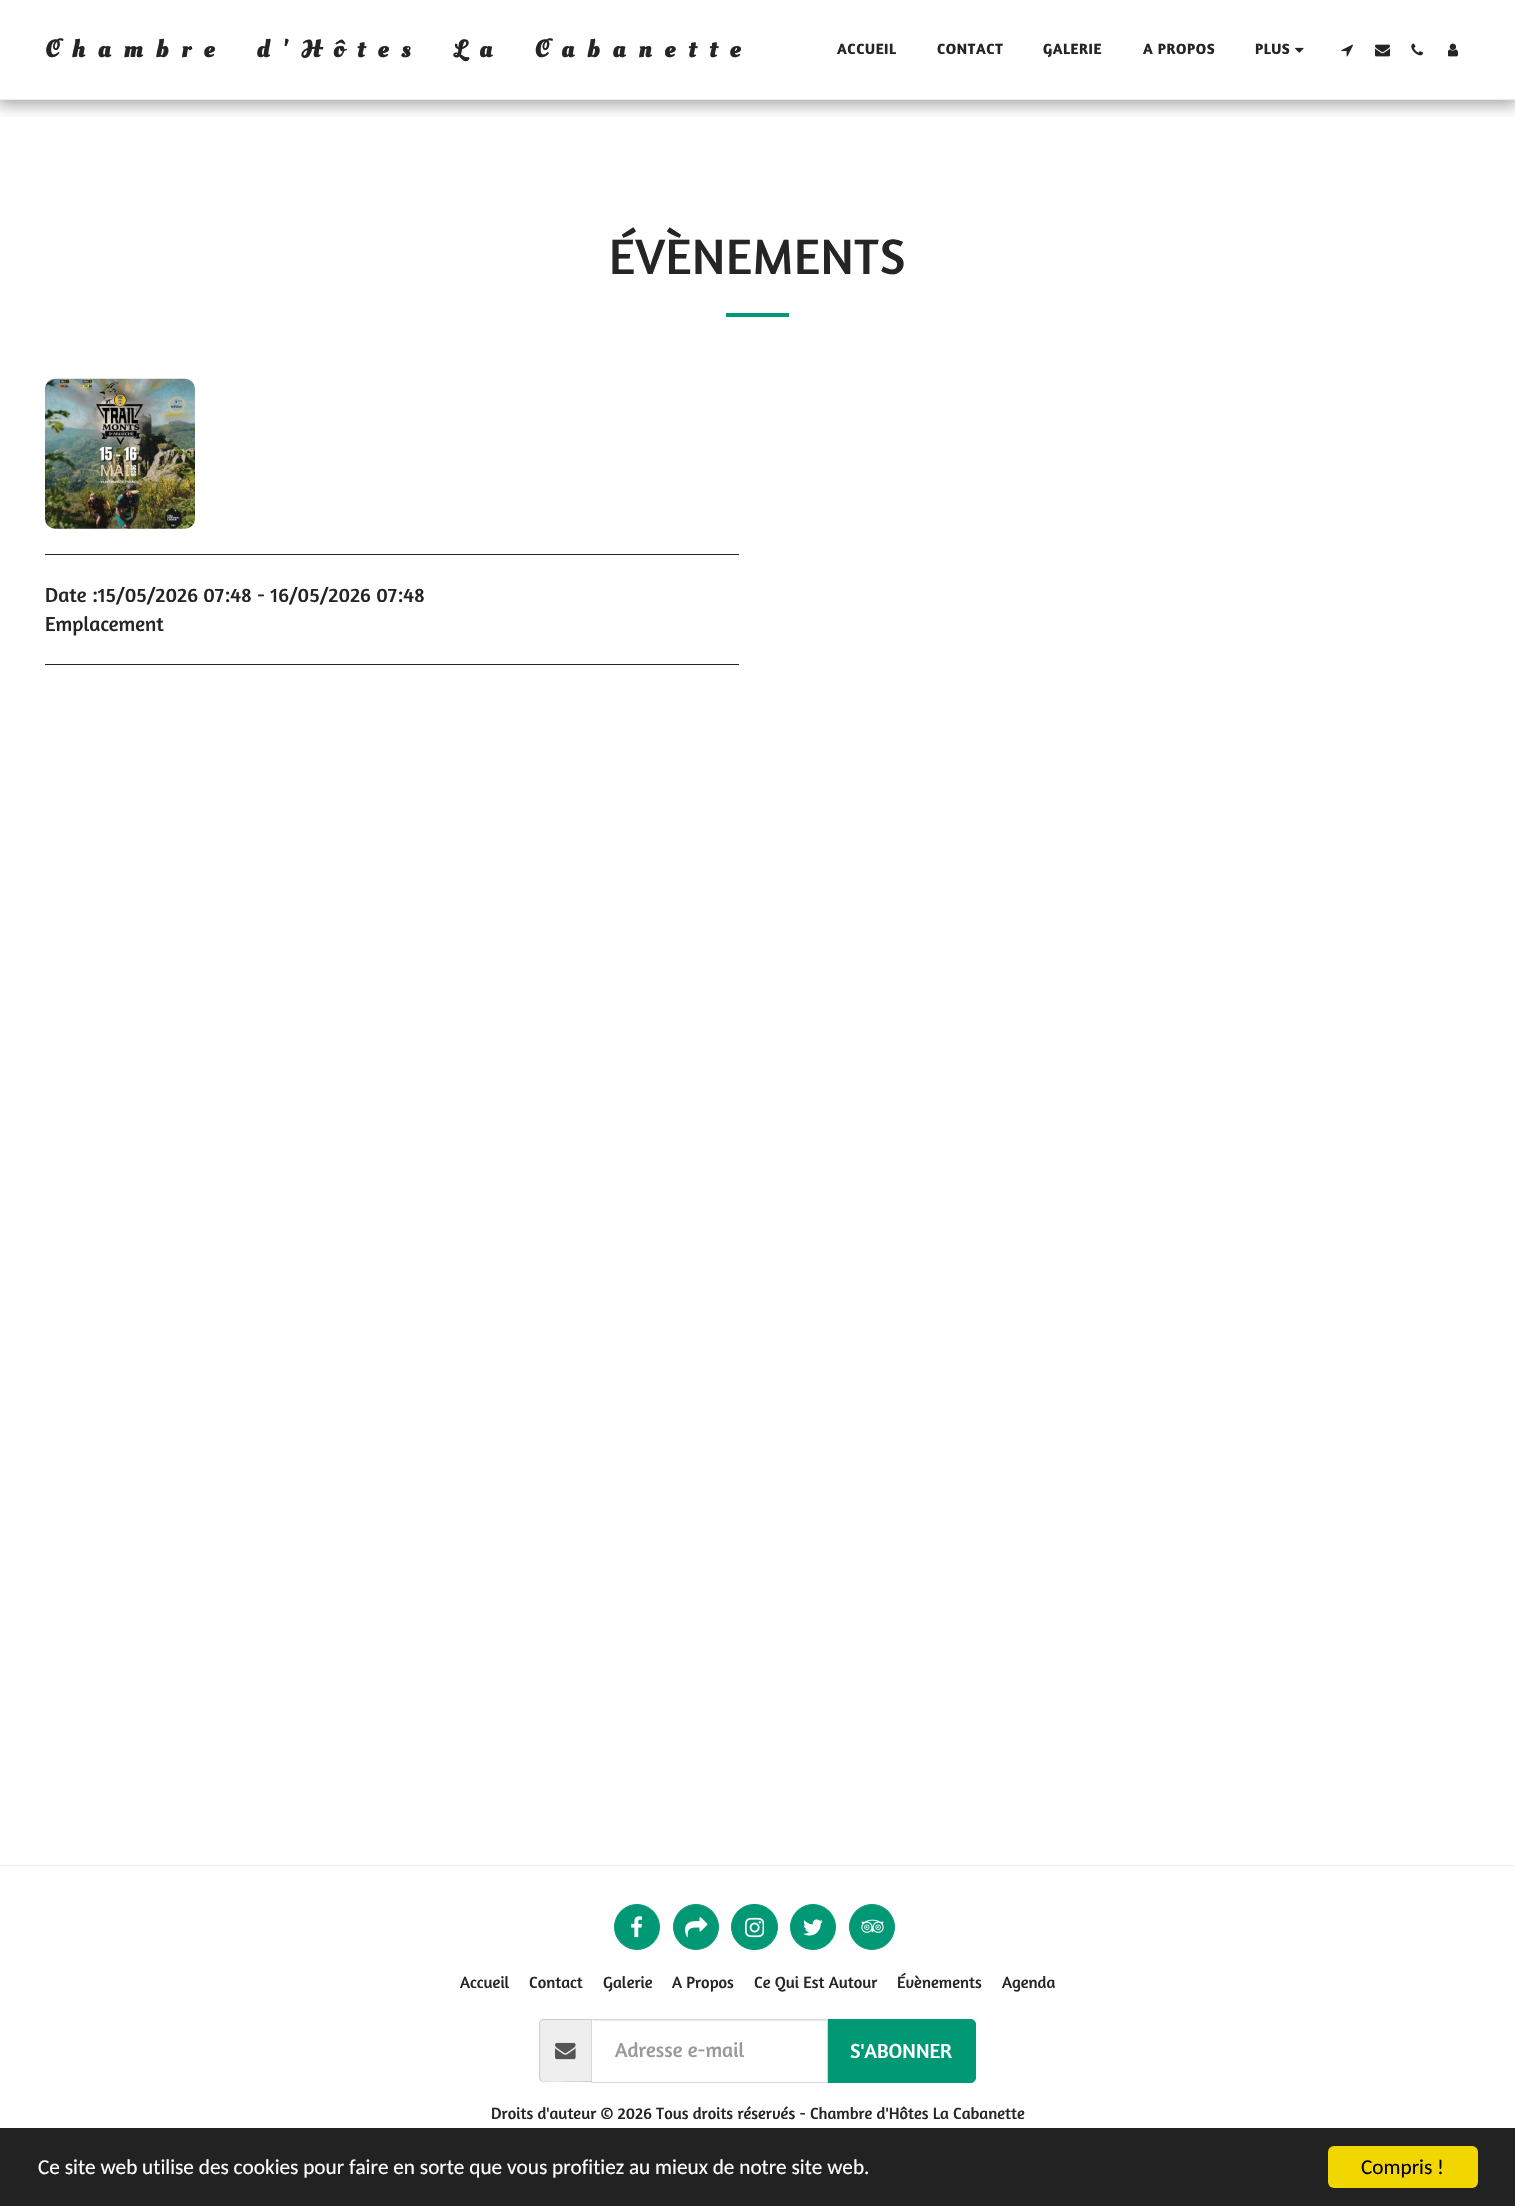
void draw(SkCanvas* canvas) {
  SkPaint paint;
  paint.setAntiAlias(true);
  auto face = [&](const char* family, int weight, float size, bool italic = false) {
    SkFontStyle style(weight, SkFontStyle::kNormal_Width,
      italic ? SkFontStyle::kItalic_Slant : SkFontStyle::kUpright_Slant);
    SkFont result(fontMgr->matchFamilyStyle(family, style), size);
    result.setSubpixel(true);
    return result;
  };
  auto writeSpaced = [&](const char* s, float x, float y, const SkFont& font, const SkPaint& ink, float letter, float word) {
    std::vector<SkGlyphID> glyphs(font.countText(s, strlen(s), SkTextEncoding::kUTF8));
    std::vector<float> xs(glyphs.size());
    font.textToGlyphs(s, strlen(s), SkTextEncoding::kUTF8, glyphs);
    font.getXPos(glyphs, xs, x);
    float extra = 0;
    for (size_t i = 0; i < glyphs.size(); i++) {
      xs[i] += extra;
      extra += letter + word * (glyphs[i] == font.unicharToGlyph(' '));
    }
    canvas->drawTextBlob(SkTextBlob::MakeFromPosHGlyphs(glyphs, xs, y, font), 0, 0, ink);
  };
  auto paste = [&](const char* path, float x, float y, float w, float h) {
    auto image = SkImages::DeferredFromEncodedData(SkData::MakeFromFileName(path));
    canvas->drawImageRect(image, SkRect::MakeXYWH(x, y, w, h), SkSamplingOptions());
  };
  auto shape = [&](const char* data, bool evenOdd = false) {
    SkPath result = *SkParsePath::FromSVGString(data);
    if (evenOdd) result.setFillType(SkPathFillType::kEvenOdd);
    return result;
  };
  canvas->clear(0xffffffff);
  canvas->save();
  canvas->clipRect(SkRect::MakeXYWH(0, 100, 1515, 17));
  paint.setColor(0x59000000);
  paint.setMaskFilter(SkMaskFilter::MakeBlur(kNormal_SkBlurStyle, 7.5f));
  canvas->drawRect(SkRect::MakeXYWH(-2, 0, 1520, 105), paint);
  paint.setMaskFilter(nullptr);
  canvas->restore();
  paint.setColor(0xffebebeb);
  canvas->drawRect(SkRect::MakeXYWH(0, 99, 1515, 1), paint);
  paste("img/1.png", 1295, 47, 9, 6);
  paste("img/2.png", 1341, 44, 12, 13);
  paste("img/3.png", 1375, 44, 15, 13);
  paste("img/4.png", 1411, 43, 12, 13);
  paste("img/5.png", 1448, 43, 10, 14);
  paint.setColor(0xff019875);
  canvas->drawRect(SkRect::MakeXYWH(726, 313, 63, 4), paint);
  paste("img/6.png", 45, 378, 150, 151);
  {
    const struct { float x, y, w, h; SkColor color; } items[] = {
      {45, 554, 694, 1, 0xff252525},
      {45, 664, 694, 1, 0xff252525},
      {0, 1865, 1515, 1, 0xffebebeb},
    };
    for (auto [x, y, w, h, color] : items) {
      paint.setColor(color);
      canvas->drawRect(SkRect::MakeXYWH(x, y, w, h), paint);
    }
  }
  paint.setColor(0xff019875);
  canvas->drawCircle(637, 1927, 22.5f, paint);
  paint.setStroke(true);
  paint.setStrokeWidth(1);
  canvas->drawCircle(637, 1927, 22.5f, paint);
  paste("img/7.png", 631, 1916, 12, 22);
  paint.setStroke(false);
  canvas->drawCircle(696, 1927, 22.5f, paint);
  paint.setStroke(true);
  canvas->drawCircle(696, 1927, 22.5f, paint);
  paste("img/8.png", 685, 1917, 23, 21);
  paint.setStroke(false);
  canvas->drawRoundRect(SkRect::MakeXYWH(731.5f, 1904.5f, 46, 45), 22.5f, 22.5f, paint);
  paint.setStroke(true);
  canvas->drawRoundRect(SkRect::MakeXYWH(731.5f, 1904.5f, 46, 45), 22.5f, 22.5f, paint);
  paste("img/9.png", 745, 1917, 19, 21);
  paint.setStroke(false);
  canvas->drawCircle(813, 1927, 22.5f, paint);
  paint.setStroke(true);
  canvas->drawCircle(813, 1927, 22.5f, paint);
  paste("img/10.png", 803, 1919, 20, 17);
  paint.setStroke(false);
  canvas->drawCircle(872, 1927, 22.5f, paint);
  paint.setStroke(true);
  canvas->drawCircle(872, 1927, 22.5f, paint);
  paste("img/11.png", 861, 1919, 23, 14);
  paint.setStroke(false);
  paint.setColor(0xffeeeeee);
  canvas->drawPath(shape("M544 2020H591V2081H544C542 2081 540 2079 540 2077V2024C540 2022 542 2020 544 2020Z"), paint);
  paint.setColor(0xffcccccc);
  canvas->drawPath(shape("M544 2019H591V2082H544C541 2082 539 2080 539 2078V2024C539 2021 541 2019 544 2019ZM544 2020H591V2081C585 2081 544 2082 542 2081L540 2078V2023L541 2021Z", true), paint);
  paste("img/12.png", 555, 2042, 21, 18);
  paint.setColor(0xff019875);
  canvas->drawPath(shape("M826.5 2019.5H971C973.5 2019.5 975.5 2021.5 975.5 2024V2078C975.5 2080.5 973.5 2082.5 971 2082.5H826.5Z"), paint);
  paint.setStroke(true);
  canvas->drawPath(shape("M826.5 2019.5H971C973.5 2019.5 975.5 2021.5 975.5 2024V2078C975.5 2080.5 973.5 2082.5 971 2082.5H826.5Z"), paint);
  paint.setStroke(false);
  paint.setColor(0xffffffff);
  canvas->drawRect(SkRect::MakeXYWH(826, 2020, 1, 62), paint);
  paint.setColor(0xffececec);
  canvas->drawRect(SkRect::MakeXYWH(593, 2020, 233, 1), paint);
  paint.setStroke(true);
  paint.setColor(0xffd4d7e5);
  canvas->drawRect(SkRect::MakeXYWH(591.5f, 2019.5f, 236, 63), paint);
  paint.setStroke(false);
  paint.setColor(0xff222222);
  canvas->drawRect(SkRect::MakeXYWH(0, 2128, 1515, 78), paint);
  paint.setColor(0xfff1d600);
  canvas->drawRoundRect(SkRect::MakeXYWH(1328, 2146, 150, 42), 6, 6, paint);
  auto f0 = face("Oleo Script Swash Caps", 700, 25);
  paint.setColor(0xff252525);
  writeSpaced("Chambre d'Hôtes", 45, 57, f0, paint, 12.5f, 12);
  writeSpaced("La Cabanette", 454, 57, f0, paint, 12.5f, 12);
  auto f1 = face("Amaranth", 700, 15);
  {
    const struct { const char* s; float x, y; } items[] = {
      {"ACCUEIL", 837, 54},
      {"CONTACT", 937, 54},
      {"GALERIE", 1043, 54},
      {"A PROPOS", 1143, 54},
      {"PLUS", 1255, 54},
    };
    for (auto [s, x, y] : items) {
      writeSpaced(s, x, y, f1, paint, 0.6f, 0);
    }
  }
  auto f2 = face("Amaranth", 400, 50.5f);
  writeSpaced("ÉVÈNEMENTS", 609, 274, f2, paint, 0.6f, 0);
  auto f3 = face("Amaranth", 400, 20.6f);
  canvas->drawString("Date :15/05/2026 07:48 - 16/05/2026 07:48", 45, 602, f3, paint);
  canvas->drawString("Emplacement", 45, 631, f3, paint);
  auto f4 = face("Amaranth", 400, 16.5f);
  {
    const struct { const char* s; float x, y; } items[] = {
      {"Accueil", 460, 1988},
      {"Contact", 529, 1988},
      {"Galerie", 603, 1988},
      {"A Propos", 672, 1988},
      {"Ce Qui Est Autour", 754, 1988},
      {"Évènements", 897, 1988},
      {"Agenda", 1002, 1988},
    };
    for (auto [s, x, y] : items) {
      canvas->drawString(s, x, y, f4, paint);
    }
  }
  paint.setColor(0xff999999);
  canvas->drawString("Adresse e-mail", 615, 2057, f3, paint);
  paint.setColor(0xffffffff);
  canvas->drawString("S'ABONNER", 850, 2058, f3, paint);
  paint.setColor(0xff252525);
  canvas->drawString("Droits d'auteur © 2026 Tous droits réservés - Chambre d'Hôtes La Cabanette", 491, 2119, f4, paint);
  auto f5 = face("Carlito", 400, 21.25f);
  paint.setColor(0xffffffff);
  canvas->drawString("Ce site web utilise des cookies pour faire en sorte que vous profitiez au mieux de notre site web.", 38, 2174, f5, paint);
  paint.setColor(0xff000000);
  canvas->drawString("Compris !", 1361, 2174, f5, paint);
}
